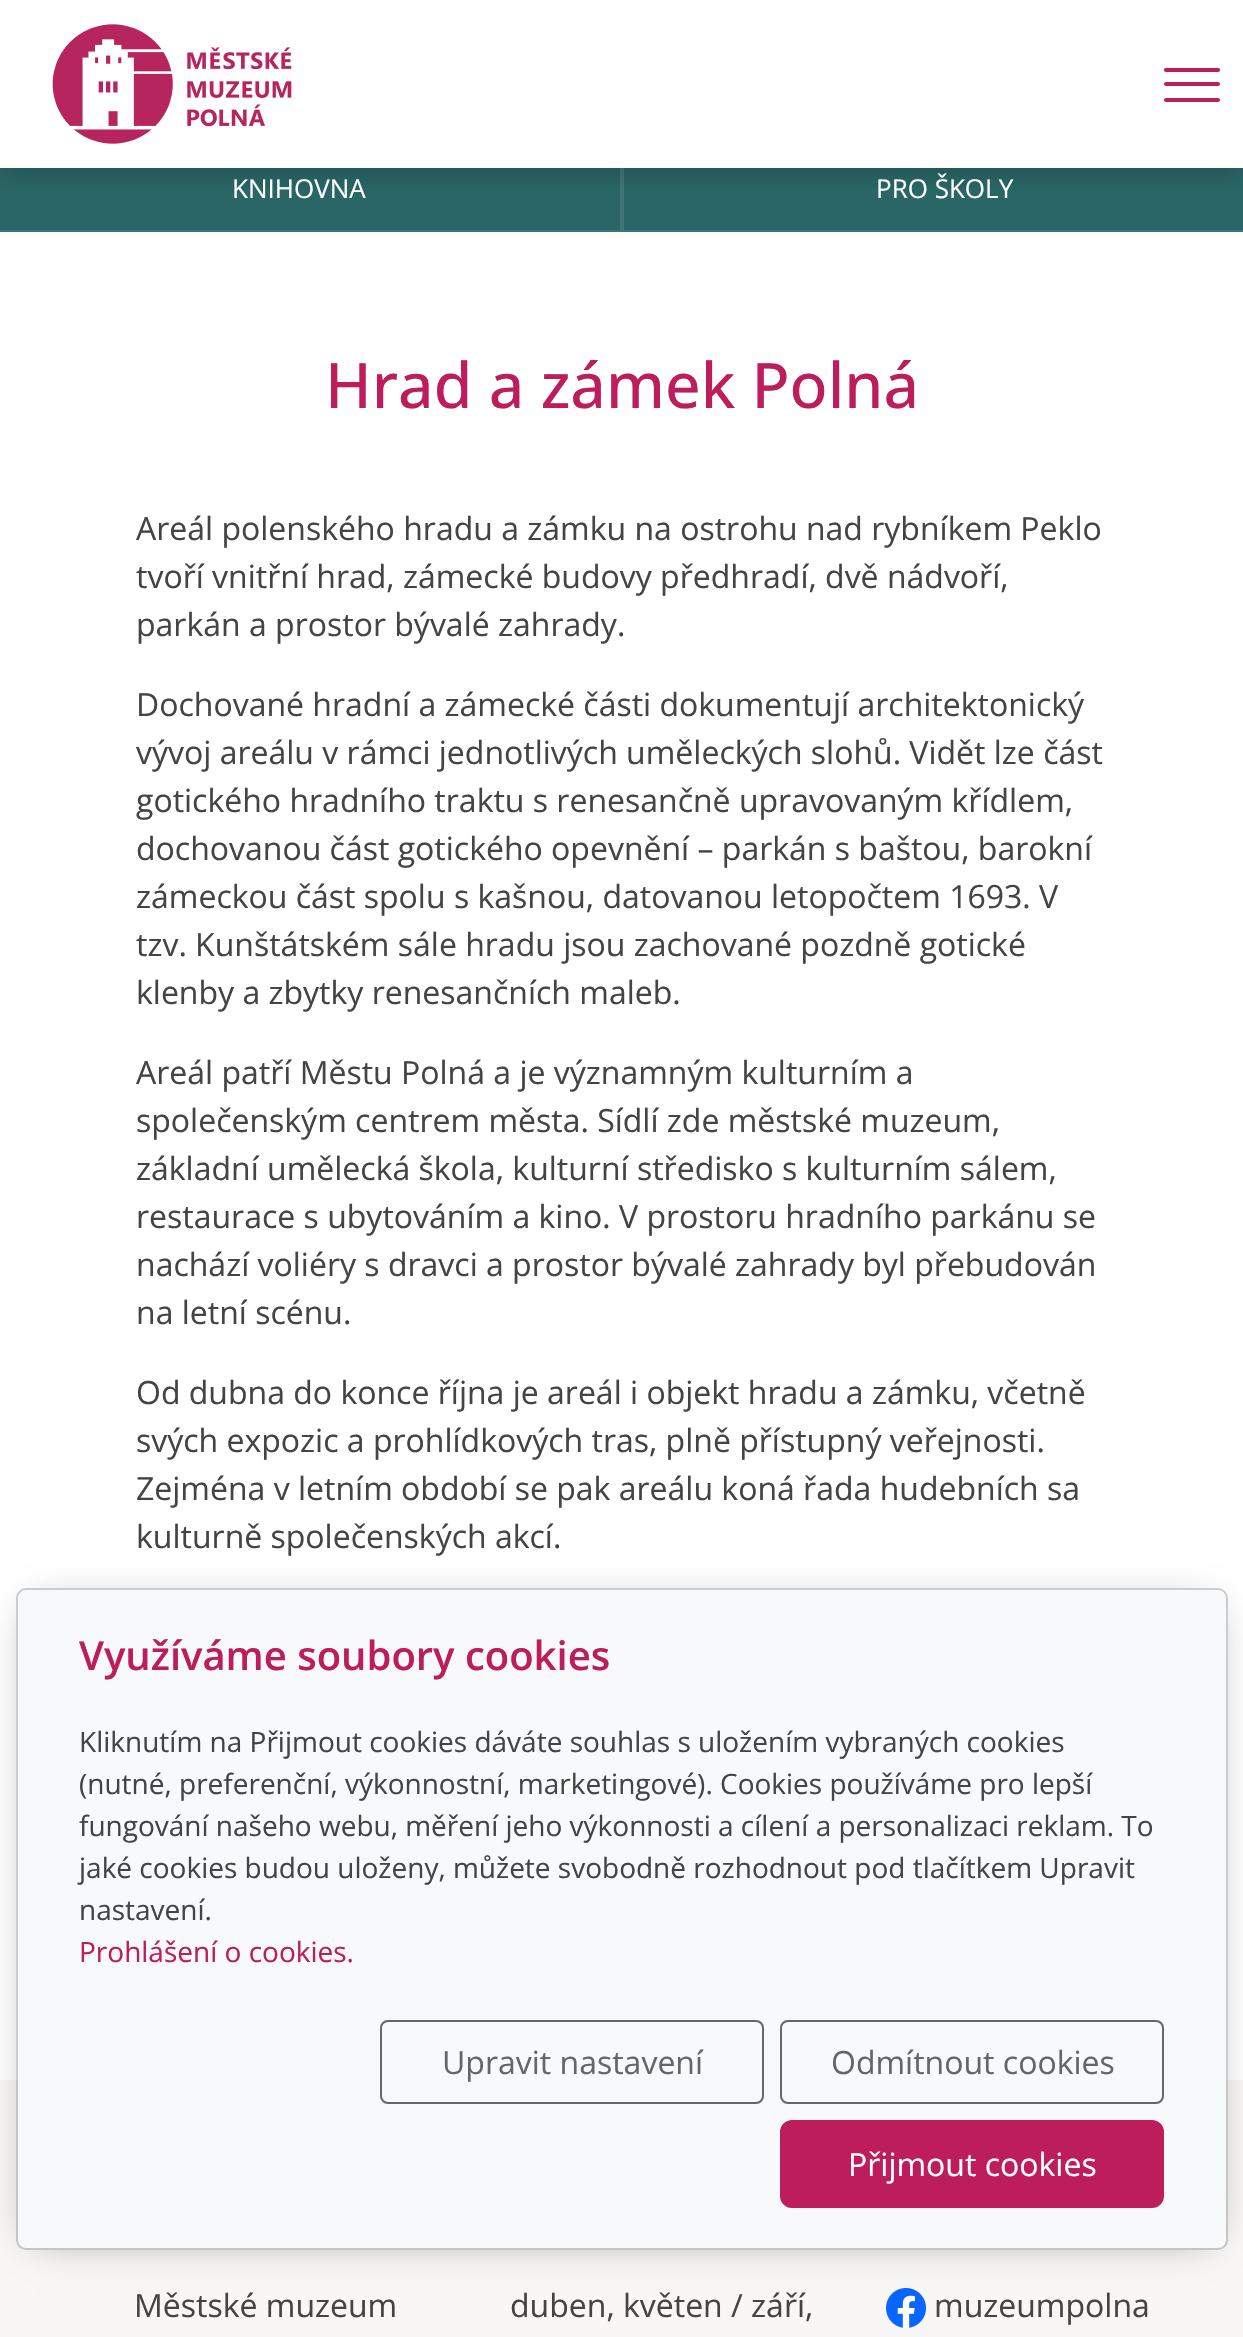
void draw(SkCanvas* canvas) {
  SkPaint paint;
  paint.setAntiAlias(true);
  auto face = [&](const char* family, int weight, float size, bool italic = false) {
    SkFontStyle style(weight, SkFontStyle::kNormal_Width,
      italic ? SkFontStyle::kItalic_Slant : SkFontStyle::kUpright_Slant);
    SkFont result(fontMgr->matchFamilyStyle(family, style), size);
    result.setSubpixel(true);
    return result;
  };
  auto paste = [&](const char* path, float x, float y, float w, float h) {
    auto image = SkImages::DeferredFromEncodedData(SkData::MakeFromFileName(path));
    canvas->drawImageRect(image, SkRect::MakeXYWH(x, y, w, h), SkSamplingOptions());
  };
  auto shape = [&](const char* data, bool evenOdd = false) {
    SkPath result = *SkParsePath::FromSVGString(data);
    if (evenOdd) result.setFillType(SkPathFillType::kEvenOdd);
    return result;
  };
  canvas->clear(0xffffffff);
  {
    const SkColor colors[] = {0xff225454, 0xff225454, 0xff296665};
    const float stops[] = {0, 0.25f, 0.75f};
    const SkPoint ends[] = {{622, -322}, {622, 232}};
    paint.setShader(SkGradientShader::MakeLinear(ends, colors, stops, 3, SkTileMode::kClamp));
    paint.setAlpha(255);
  }
  canvas->drawRect(SkRect::MakeXYWH(0, 168, 1243, 64), paint);
  paint.setStroke(true);
  paint.setStrokeWidth(2);
  paint.setShader(nullptr);
  paint.setColor(0x1affffff);
  canvas->drawRect(SkRect::MakeXYWH(-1, 49, 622, 182), paint);
  canvas->drawRect(SkRect::MakeXYWH(623, 49, 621, 182), paint);
  canvas->save();
  canvas->clipRect(SkRect::MakeXYWH(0, 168, 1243, 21));
  paint.setStroke(false);
  paint.setColor(0x40000000);
  paint.setMaskFilter(SkMaskFilter::MakeBlur(kNormal_SkBlurStyle, 15));
  canvas->drawRect(SkRect::MakeXYWH(0, 0, 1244, 168), paint);
  paint.setMaskFilter(nullptr);
  canvas->restore();
  paste("img/1.png", 52, 24, 240, 120);
  paint.setColor(0xffbd1d5b);
  canvas->drawRoundRect(SkRect::MakeXYWH(1164, 68, 56, 4), 2, 2, paint);
  canvas->drawRoundRect(SkRect::MakeXYWH(1164, 82, 56, 4), 2, 2, paint);
  canvas->drawRoundRect(SkRect::MakeXYWH(1164, 98, 56, 4), 2, 2, paint);
  paint.setColor(0xfff8f7f6);
  canvas->drawRect(SkRect::MakeXYWH(0, 2080, 1243, 257), paint);
  paste("img/2.png", 886, 2288, 40, 40);
  canvas->save();
  canvas->clipPath(shape("M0 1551H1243V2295H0ZM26 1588H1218C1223.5 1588 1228 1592.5 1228 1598V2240C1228 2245.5 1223.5 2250 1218 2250H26C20.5 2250 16 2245.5 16 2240V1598C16 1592.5 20.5 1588 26 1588Z", true), true);
  paint.setColor(0x80000000);
  paint.setMaskFilter(SkMaskFilter::MakeBlur(kNormal_SkBlurStyle, 20));
  canvas->drawRect(SkRect::MakeXYWH(36, 1612, 1172, 622), paint);
  paint.setMaskFilter(nullptr);
  canvas->restore();
  paint.setColor(0xfff8f9fa);
  canvas->drawRoundRect(SkRect::MakeXYWH(18, 1590, 1208, 658), 8, 8, paint);
  paint.setStroke(true);
  paint.setColor(0x33000000);
  canvas->drawRoundRect(SkRect::MakeXYWH(17, 1589, 1210, 660), 9, 9, paint);
  paint.setColor(0xff646669);
  canvas->drawRoundRect(SkRect::MakeXYWH(381, 2021, 382, 82), 7, 7, paint);
  canvas->drawRoundRect(SkRect::MakeXYWH(781, 2021, 382, 82), 7, 7, paint);
  paint.setStroke(false);
  paint.setColor(0xffbd1d5b);
  canvas->drawRoundRect(SkRect::MakeXYWH(782, 2122, 380, 84), 10, 10, paint);
  paint.setStroke(true);
  paint.setStrokeWidth(4);
  canvas->drawRoundRect(SkRect::MakeXYWH(782, 2122, 380, 84), 10, 10, paint);
  auto f0 = face("Open Sans", 400, 26);
  paint.setStroke(false);
  paint.setColor(0xffffffff);
  canvas->drawString("KNIHOVNA", 232, 198, f0, paint);
  canvas->drawString("PRO ŠKOLY", 876, 198, f0, paint);
  auto f1 = face("Open Sans", 500, 62.75f);
  paint.setColor(0xffbd1d5b);
  canvas->drawString("Hrad a zámek Polná", 325, 408, f1, paint);
  auto f2 = face("Open Sans", 400, 32);
  paint.setColor(0xff444444);
  {
    const struct { const char* s; float x, y; } items[] = {
      {"Areál polenského hradu a zámku na ostrohu nad rybníkem Peklo", 136, 540},
      {"tvoří vnitřní hrad, zámecké budovy předhradí, dvě nádvoří,", 136, 588},
      {"parkán a prostor bývalé zahrady.", 136, 636},
      {"Dochované hradní a zámecké části dokumentují architektonický", 136, 716},
      {"vývoj areálu v rámci jednotlivých uměleckých slohů. Vidět lze část", 136, 764},
      {"gotického hradního traktu s renesančně upravovaným křídlem,", 136, 812},
      {"dochovanou část gotického opevnění – parkán s baštou, barokní", 136, 860},
      {"zámeckou část spolu s kašnou, datovanou letopočtem 1693. V", 136, 908},
      {"tzv. Kunštátském sále hradu jsou zachované pozdně gotické", 136, 956},
      {"klenby a zbytky renesančních maleb.", 136, 1004},
      {"Areál patří Městu Polná a je významným kulturním a", 136, 1084},
      {"společenským centrem města. Sídlí zde městské muzeum,", 136, 1132},
      {"základní umělecká škola, kulturní středisko s kulturním sálem,", 136, 1180},
      {"restaurace s ubytováním a kino. V prostoru hradního parkánu se", 136, 1228},
      {"nachází voliéry s dravci a prostor bývalé zahrady byl přebudován", 136, 1276},
      {"na letní scénu.", 136, 1324},
      {"Od dubna do konce října je areál i objekt hradu a zámku, včetně", 136, 1404},
      {"svých expozic a prohlídkových tras, plně přístupný veřejnosti.", 136, 1452},
      {"Zejména v letním období se pak areálu koná řada hudebních sa", 136, 1500},
      {"kulturně společenských akcí.", 136, 1548},
      {"Městské muzeum", 134, 2317},
      {"duben, květen / září,", 510, 2317},
      {"muzeumpolna", 934, 2317},
    };
    for (auto [s, x, y] : items) {
      canvas->drawString(s, x, y, f2, paint);
    }
  }
  auto f3 = face("Open Sans", 600, 40);
  paint.setColor(0xffbd1d5b);
  canvas->drawString("Využíváme soubory cookies", 79, 1670, f3, paint);
  auto f4 = face("Open Sans", 400, 28);
  paint.setColor(0xff444444);
  {
    const struct { const char* s; float x, y; } items[] = {
      {"Kliknutím na Přijmout cookies dáváte souhlas s uložením vybraných cookies", 79, 1752},
      {"(nutné, preferenční, výkonnostní, marketingové). Cookies používáme pro lepší", 79, 1794},
      {"fungování našeho webu, měření jeho výkonnosti a cílení a personalizaci reklam. To", 79, 1836},
      {"jaké cookies budou uloženy, můžete svobodně rozhodnout pod tlačítkem Upravit", 79, 1878},
      {"nastavení.", 79, 1920},
    };
    for (auto [s, x, y] : items) {
      canvas->drawString(s, x, y, f4, paint);
    }
  }
  paint.setColor(0xffbd1d5b);
  canvas->drawString("Prohlášení o cookies.", 79, 1962, f4, paint);
  paint.setColor(0xff646669);
  canvas->drawString("Upravit nastavení", 442, 2074, f2, paint);
  canvas->drawString("Odmítnout cookies", 831, 2074, f2, paint);
  paint.setColor(0xffffffff);
  canvas->drawString("Přijmout cookies", 848, 2176, f2, paint);
}
